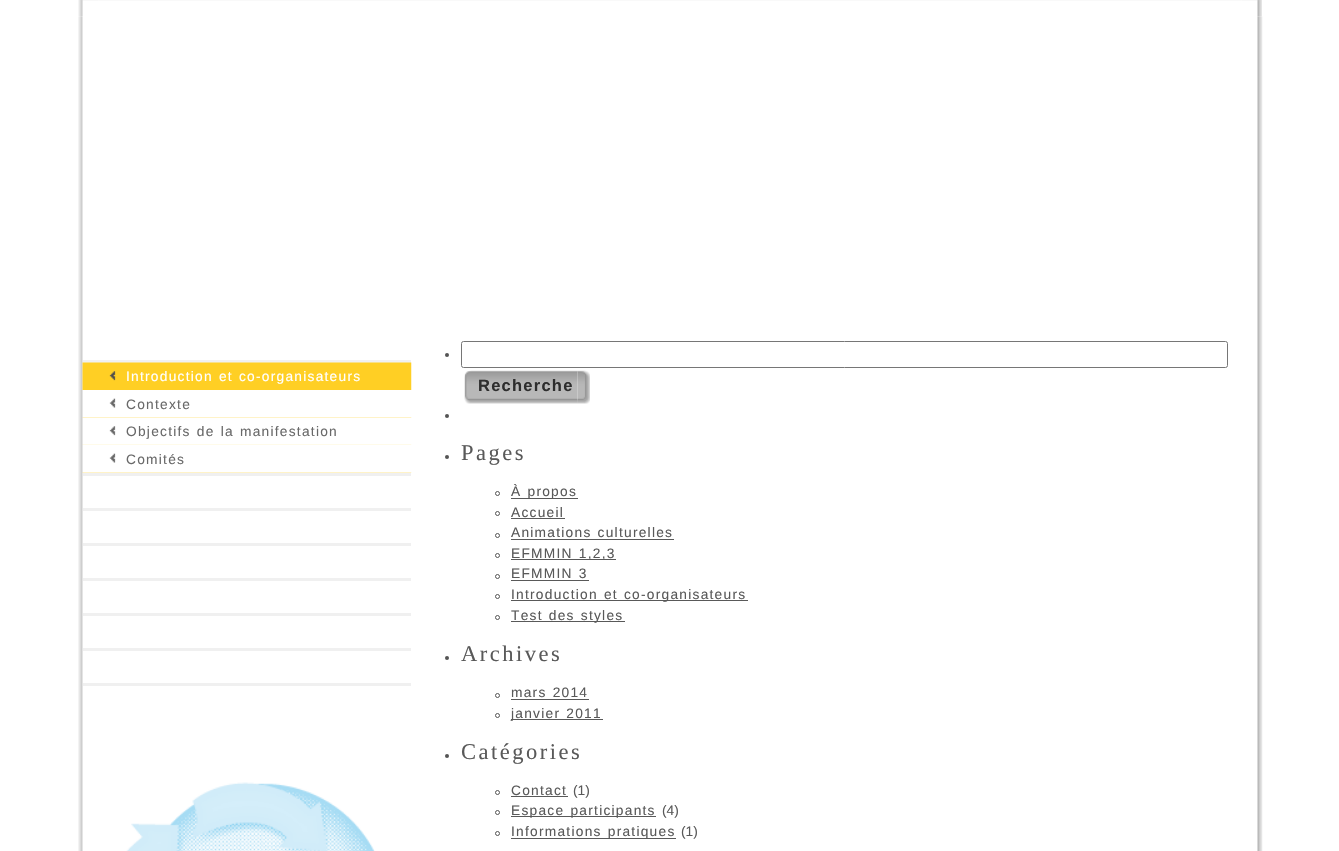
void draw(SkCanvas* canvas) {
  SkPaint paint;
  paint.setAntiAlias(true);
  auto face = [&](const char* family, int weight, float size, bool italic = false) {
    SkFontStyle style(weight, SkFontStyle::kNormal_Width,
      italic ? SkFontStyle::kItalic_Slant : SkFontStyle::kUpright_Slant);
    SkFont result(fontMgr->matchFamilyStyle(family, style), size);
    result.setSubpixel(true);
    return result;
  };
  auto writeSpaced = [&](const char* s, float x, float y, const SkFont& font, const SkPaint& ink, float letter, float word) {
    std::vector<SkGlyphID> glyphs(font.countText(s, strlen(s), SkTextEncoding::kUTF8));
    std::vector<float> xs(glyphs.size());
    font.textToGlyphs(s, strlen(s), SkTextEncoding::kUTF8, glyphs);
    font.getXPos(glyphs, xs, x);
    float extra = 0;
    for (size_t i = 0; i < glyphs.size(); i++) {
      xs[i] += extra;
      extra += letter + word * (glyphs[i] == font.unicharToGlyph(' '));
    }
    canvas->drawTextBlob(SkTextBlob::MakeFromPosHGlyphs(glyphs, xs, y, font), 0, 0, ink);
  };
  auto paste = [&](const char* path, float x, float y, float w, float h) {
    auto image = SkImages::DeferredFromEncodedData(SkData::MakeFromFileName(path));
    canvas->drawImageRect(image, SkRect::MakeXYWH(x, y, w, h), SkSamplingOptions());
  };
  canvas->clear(0xffffffff);
  paste("img/1.png", 78, 0, 21, 17);
  paint.setColor(0xfff9f9f9);
  canvas->drawRect(SkRect::MakeXYWH(99, 0, 1142, 1), paint);
  paste("img/2.png", 1241, 0, 21, 17);
  paste("img/3.png", 78, 16, 5, 835);
  paint.setColor(0xfff0f0f0);
  canvas->drawRect(SkRect::MakeXYWH(83, 360, 328, 3), paint);
  paste("img/4.png", 82, 362, 330, 28);
  paste("img/5.png", 82, 398, 330, 20);
  paste("img/6.png", 82, 426, 330, 19);
  paste("img/5.png", 82, 453, 330, 20);
  {
    const struct { float x, y, w, h; SkColor color; } items[] = {
      {83, 473, 328, 3, 0xfff0f0f0},
      {83, 508, 328, 3, 0xfff0f0f0},
      {83, 543, 328, 3, 0xfff0f0f0},
      {83, 578, 328, 3, 0xfff0f0f0},
      {83, 613, 328, 3, 0xfff0f0f0},
      {83, 648, 328, 3, 0xfff0f0f0},
      {83, 683, 328, 3, 0xfff0f0f0},
    };
    for (auto [x, y, w, h, color] : items) {
      paint.setColor(color);
      canvas->drawRect(SkRect::MakeXYWH(x, y, w, h), paint);
    }
  }
  paste("img/7.png", 126, 782, 249, 69);
  paint.setColor(0xff545454);
  canvas->drawCircle(447, 355, 2, paint);
  paint.setStroke(true);
  paint.setStrokeWidth(1);
  paint.setColor(0xff767676);
  canvas->drawRoundRect(SkRect::MakeXYWH(461.5f, 341.5f, 766, 26), 2, 2, paint);
  paste("img/8.png", 464, 370, 114, 34);
  paste("img/9.png", 577, 370, 13, 34);
  paint.setStroke(false);
  paint.setColor(0xff545454);
  canvas->drawCircle(447, 416, 2, paint);
  canvas->drawCircle(447, 457, 2, paint);
  paint.setStroke(true);
  canvas->drawCircle(497.5f, 493.5f, 2, paint);
  paint.setStroke(false);
  paint.setColor(0xff595959);
  canvas->drawRect(SkRect::MakeXYWH(511, 498, 67, 1), paint);
  paint.setStroke(true);
  paint.setColor(0xff545454);
  canvas->drawCircle(497.5f, 513.5f, 2, paint);
  paint.setStroke(false);
  paint.setColor(0xff595959);
  canvas->drawRect(SkRect::MakeXYWH(511, 518, 54, 1), paint);
  paint.setStroke(true);
  paint.setColor(0xff545454);
  canvas->drawCircle(497.5f, 535.5f, 2, paint);
  paint.setStroke(false);
  paint.setColor(0xff595959);
  canvas->drawRect(SkRect::MakeXYWH(511, 539, 163, 1), paint);
  paint.setStroke(true);
  paint.setColor(0xff545454);
  canvas->drawCircle(497.5f, 555.5f, 2, paint);
  paint.setStroke(false);
  paint.setColor(0xff595959);
  canvas->drawRect(SkRect::MakeXYWH(511, 559, 105, 1), paint);
  paint.setStroke(true);
  paint.setColor(0xff545454);
  canvas->drawCircle(497.5f, 576.5f, 2, paint);
  paint.setStroke(false);
  paint.setColor(0xff595959);
  canvas->drawRect(SkRect::MakeXYWH(511, 580, 78, 1), paint);
  paint.setStroke(true);
  paint.setColor(0xff545454);
  canvas->drawCircle(497.5f, 596.5f, 2, paint);
  paint.setStroke(false);
  paint.setColor(0xff595959);
  canvas->drawRect(SkRect::MakeXYWH(511, 600, 237, 1), paint);
  paint.setStroke(true);
  paint.setColor(0xff545454);
  canvas->drawCircle(497.5f, 617.5f, 2, paint);
  paint.setStroke(false);
  paint.setColor(0xff595959);
  canvas->drawRect(SkRect::MakeXYWH(511, 621, 114, 1), paint);
  paint.setColor(0xff545454);
  canvas->drawCircle(447, 658, 2, paint);
  paint.setStroke(true);
  canvas->drawCircle(497.5f, 695.5f, 2, paint);
  paint.setStroke(false);
  paint.setColor(0xff595959);
  canvas->drawRect(SkRect::MakeXYWH(511, 699, 78, 1), paint);
  paint.setStroke(true);
  paint.setColor(0xff545454);
  canvas->drawCircle(497.5f, 715.5f, 2, paint);
  paint.setStroke(false);
  paint.setColor(0xff595959);
  canvas->drawRect(SkRect::MakeXYWH(511, 719, 92, 1), paint);
  paint.setColor(0xff545454);
  canvas->drawCircle(447, 756, 2, paint);
  paint.setStroke(true);
  canvas->drawCircle(497.5f, 792.5f, 2, paint);
  paint.setStroke(false);
  paint.setColor(0xff595959);
  canvas->drawRect(SkRect::MakeXYWH(511, 796, 57, 1), paint);
  paint.setStroke(true);
  paint.setColor(0xff545454);
  canvas->drawCircle(497.5f, 812.5f, 2, paint);
  paint.setStroke(false);
  paint.setColor(0xff595959);
  canvas->drawRect(SkRect::MakeXYWH(511, 816, 145, 1), paint);
  paint.setStroke(true);
  paint.setColor(0xff545454);
  canvas->drawCircle(497.5f, 833.5f, 2, paint);
  paint.setStroke(false);
  paint.setColor(0xff595959);
  canvas->drawRect(SkRect::MakeXYWH(511, 838, 165, 1), paint);
  paste("img/10.png", 1257, 16, 6, 835);
  auto f0 = face("Liberation Sans", 400, 13.75f);
  paint.setColor(0xffffffff);
  writeSpaced("Introduction et co-organisateurs", 126, 381, f0, paint, 1.25f, 1);
  paint.setColor(0xff696969);
  writeSpaced("Contexte", 126, 409, f0, paint, 1.25f, 0);
  writeSpaced("Objectifs de la manifestation", 126, 436, f0, paint, 1.25f, 1);
  writeSpaced("Comités", 126, 464, f0, paint, 1.25f, 0);
  auto f1 = face("Liberation Sans", 700, 16.5f);
  paint.setColor(0xff2e2e2e);
  writeSpaced("Recherche", 478, 391, f1, paint, 1.25f, 0);
  auto f2 = face("Liberation Serif", 400, 22.5f);
  paint.setColor(0xff595959);
  writeSpaced("Pages", 461, 460, f2, paint, 2.5f, 0);
  writeSpaced("À propos", 511, 496, f0, paint, 1.25f, 1);
  writeSpaced("Accueil", 511, 517, f0, paint, 1.25f, 0);
  {
    const struct { const char* s; float x, y; } items[] = {
      {"Animations culturelles", 511, 537},
      {"EFMMIN 1,2,3", 511, 558},
      {"EFMMIN 3", 511, 578},
      {"Introduction et co-organisateurs", 511, 599},
      {"Test des styles", 511, 620},
    };
    for (auto [s, x, y] : items) {
      writeSpaced(s, x, y, f0, paint, 1.25f, 1);
    }
  }
  writeSpaced("Archives", 461, 661, f2, paint, 2.5f, 0);
  writeSpaced("mars 2014", 511, 697, f0, paint, 1.25f, 1);
  writeSpaced("janvier 2011", 511, 718, f0, paint, 1.25f, 1);
  writeSpaced("Catégories", 461, 759, f2, paint, 2.5f, 0);
  writeSpaced("Contact", 511, 795, f0, paint, 1.25f, 0);
  canvas->drawString("(1)", 573, 795, f0, paint);
  writeSpaced("Espace participants", 511, 815, f0, paint, 1.25f, 1);
  canvas->drawString("(4)", 662, 815, f0, paint);
  writeSpaced("Informations pratiques", 511, 836, f0, paint, 1.25f, 1);
  canvas->drawString("(1)", 681, 836, f0, paint);
}
